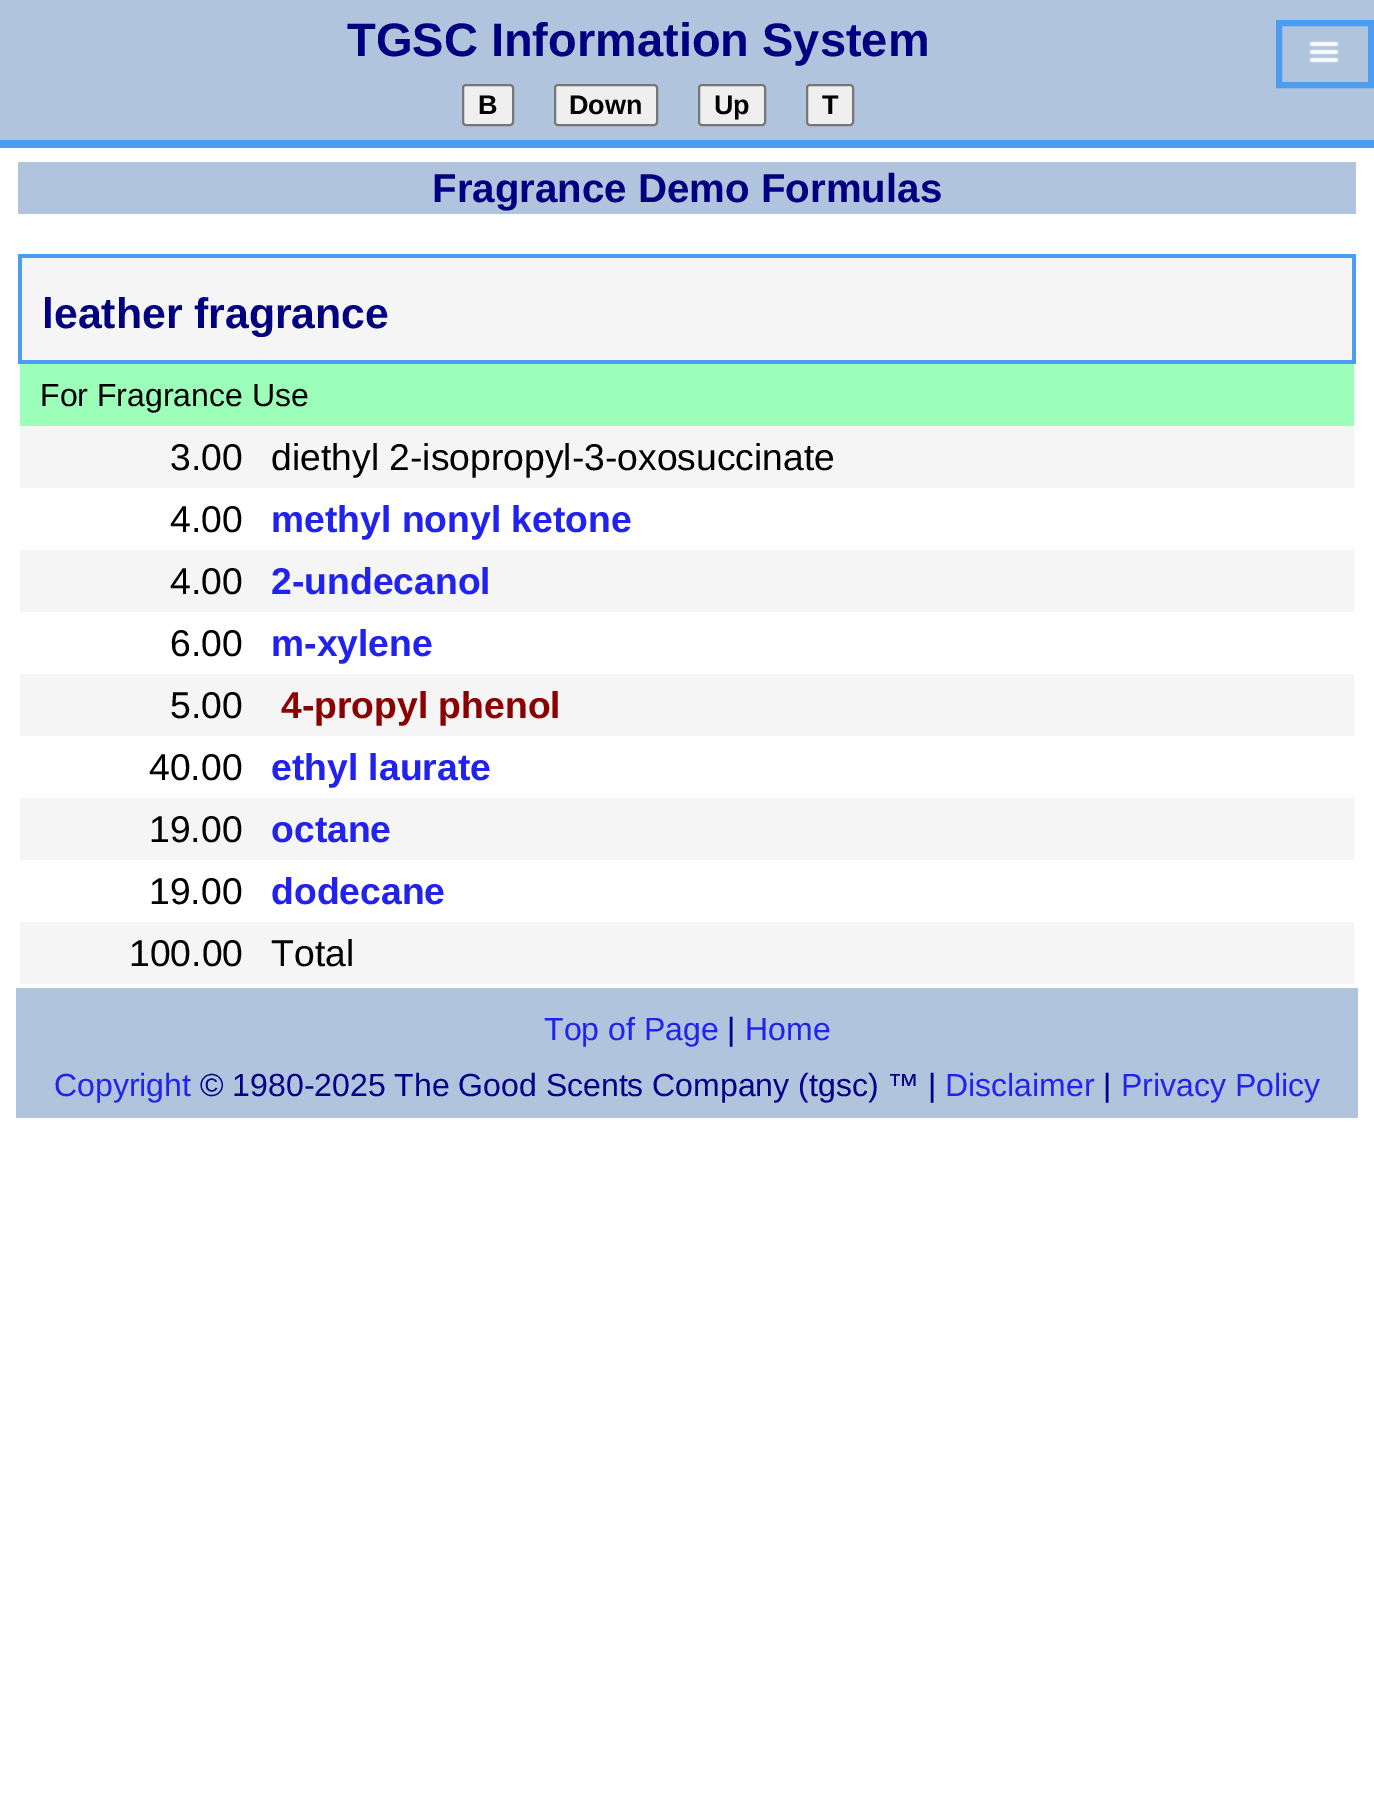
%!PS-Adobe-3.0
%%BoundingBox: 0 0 1374 1802
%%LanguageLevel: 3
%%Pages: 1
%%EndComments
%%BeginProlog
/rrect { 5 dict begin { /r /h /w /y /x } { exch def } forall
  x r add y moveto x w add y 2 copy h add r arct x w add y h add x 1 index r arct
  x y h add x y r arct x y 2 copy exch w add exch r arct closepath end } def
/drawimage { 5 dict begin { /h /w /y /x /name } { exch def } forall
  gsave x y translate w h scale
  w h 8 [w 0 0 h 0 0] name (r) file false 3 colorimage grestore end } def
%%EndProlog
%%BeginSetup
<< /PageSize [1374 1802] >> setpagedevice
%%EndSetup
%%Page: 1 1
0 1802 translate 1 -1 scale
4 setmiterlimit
1 setgray
0 0 1374 1802 rectfill
0.69 0.769 0.871 setrgbcolor
0 0 1374 140 rectfill
0.298 0.612 0.945 setrgbcolor
0 140 1374 8 rectfill
6 setlinewidth
1279 23 92 62 rectstroke
(images/1.raw) 1309 41 30 22 drawimage
0.937 setgray
463 85 50 40 3 rrect gsave fill grestore
0.463 setgray
2 setlinewidth
stroke
0.937 setgray
555 85 102 40 3 rrect gsave fill grestore
0.463 setgray
stroke
0.937 setgray
699 85 66 40 3 rrect gsave fill grestore
0.463 setgray
stroke
0.937 setgray
807 85 46 40 3 rrect gsave fill grestore
0.463 setgray
stroke
0.69 0.769 0.871 setrgbcolor
18 162 1338 52 rectfill
0.961 setgray
22 258 1330 102 rectfill
0.298 0.612 0.945 setrgbcolor
18 254 1338 4 rectfill
1352 254 4 110 rectfill
18 360 1338 4 rectfill
18 254 4 110 rectfill
0.608 1 0.725 setrgbcolor
20 364 1334 62 rectfill
0.961 setgray
20 426 1334 62 rectfill
20 550 1334 62 rectfill
20 674 1334 62 rectfill
20 798 1334 62 rectfill
20 922 1334 62 rectfill
0.69 0.769 0.871 setrgbcolor
16 988 1342 130 rectfill
/LiberationSans-Bold [47 0 0 -47 0 0] selectfont
0 0 0.502 setrgbcolor
347 56 moveto (TGSC Information System) show
/LiberationSans-Bold [27 0 0 -27 0 0] selectfont
0 setgray
478 114 moveto (B) show
569 114 moveto (Down) show
714 114 moveto (Up) show
822 114 moveto (T) show
/LiberationSans-Bold [40.25 0 0 -40.25 0 0] selectfont
0 0 0.502 setrgbcolor
432 202 moveto (Fragrance Demo Formulas) show
/LiberationSans-Bold [42.75 0 0 -42.75 0 0] selectfont
42 328 moveto (leather fragrance) show
/LiberationSans-Regular [32 0 0 -32 0 0] selectfont
0 setgray
40 406 moveto (For Fragrance Use) show
/LiberationSans-Regular [37.3 0 0 -37.3 0 0] selectfont
170 470 moveto (3.00) show
271 470 moveto (diethyl 2-isopropyl-3-oxosuccinate) show
170 532 moveto (4.00) show
/LiberationSans-Bold [37.3 0 0 -37.3 0 0] selectfont
0.133 0.133 0.933 setrgbcolor
271 532 moveto (methyl nonyl ketone) show
/LiberationSans-Regular [37.3 0 0 -37.3 0 0] selectfont
0 setgray
170 594 moveto (4.00) show
/LiberationSans-Bold [37.3 0 0 -37.3 0 0] selectfont
0.133 0.133 0.933 setrgbcolor
271 594 moveto (2-undecanol) show
/LiberationSans-Regular [37.3 0 0 -37.3 0 0] selectfont
0 setgray
170 656 moveto (6.00) show
/LiberationSans-Bold [37.3 0 0 -37.3 0 0] selectfont
0.133 0.133 0.933 setrgbcolor
271 656 moveto (m-xylene) show
/LiberationSans-Regular [37.3 0 0 -37.3 0 0] selectfont
0 setgray
170 718 moveto (5.00) show
/LiberationSans-Bold [37.3 0 0 -37.3 0 0] selectfont
0.545 0 0 setrgbcolor
281 718 moveto (4-propyl phenol) show
/LiberationSans-Regular [37.3 0 0 -37.3 0 0] selectfont
0 setgray
149 780 moveto (40.00) show
/LiberationSans-Bold [37.3 0 0 -37.3 0 0] selectfont
0.133 0.133 0.933 setrgbcolor
271 780 moveto (ethyl laurate) show
/LiberationSans-Regular [37.3 0 0 -37.3 0 0] selectfont
0 setgray
149 842 moveto (19.00) show
/LiberationSans-Bold [37.3 0 0 -37.3 0 0] selectfont
0.133 0.133 0.933 setrgbcolor
271 842 moveto (octane) show
/LiberationSans-Regular [37.3 0 0 -37.3 0 0] selectfont
0 setgray
149 904 moveto (19.00) show
/LiberationSans-Bold [37.3 0 0 -37.3 0 0] selectfont
0.133 0.133 0.933 setrgbcolor
271 904 moveto (dodecane) show
/LiberationSans-Regular [37.3 0 0 -37.3 0 0] selectfont
0 setgray
129 966 moveto (100.00) show
271 966 moveto (Total) show
/LiberationSans-Regular [32 0 0 -32 0 0] selectfont
0.133 0.133 0.933 setrgbcolor
544 1040 moveto (Top of Page) show
0 0 0.533 setrgbcolor
727 1040 moveto (|) show
0.133 0.133 0.933 setrgbcolor
745 1040 moveto (Home) show
54 1096 moveto (Copyright) show
0 0 0.533 setrgbcolor
200 1096 moveto (© 1980-2025 The Good Scents Company \(tgsc\) ™ |) show
0.133 0.133 0.933 setrgbcolor
945 1096 moveto (Disclaimer) show
0 0 0.533 setrgbcolor
1103 1096 moveto (|) show
0.133 0.133 0.933 setrgbcolor
1121 1096 moveto (Privacy Policy) show
showpage
%%EOF
